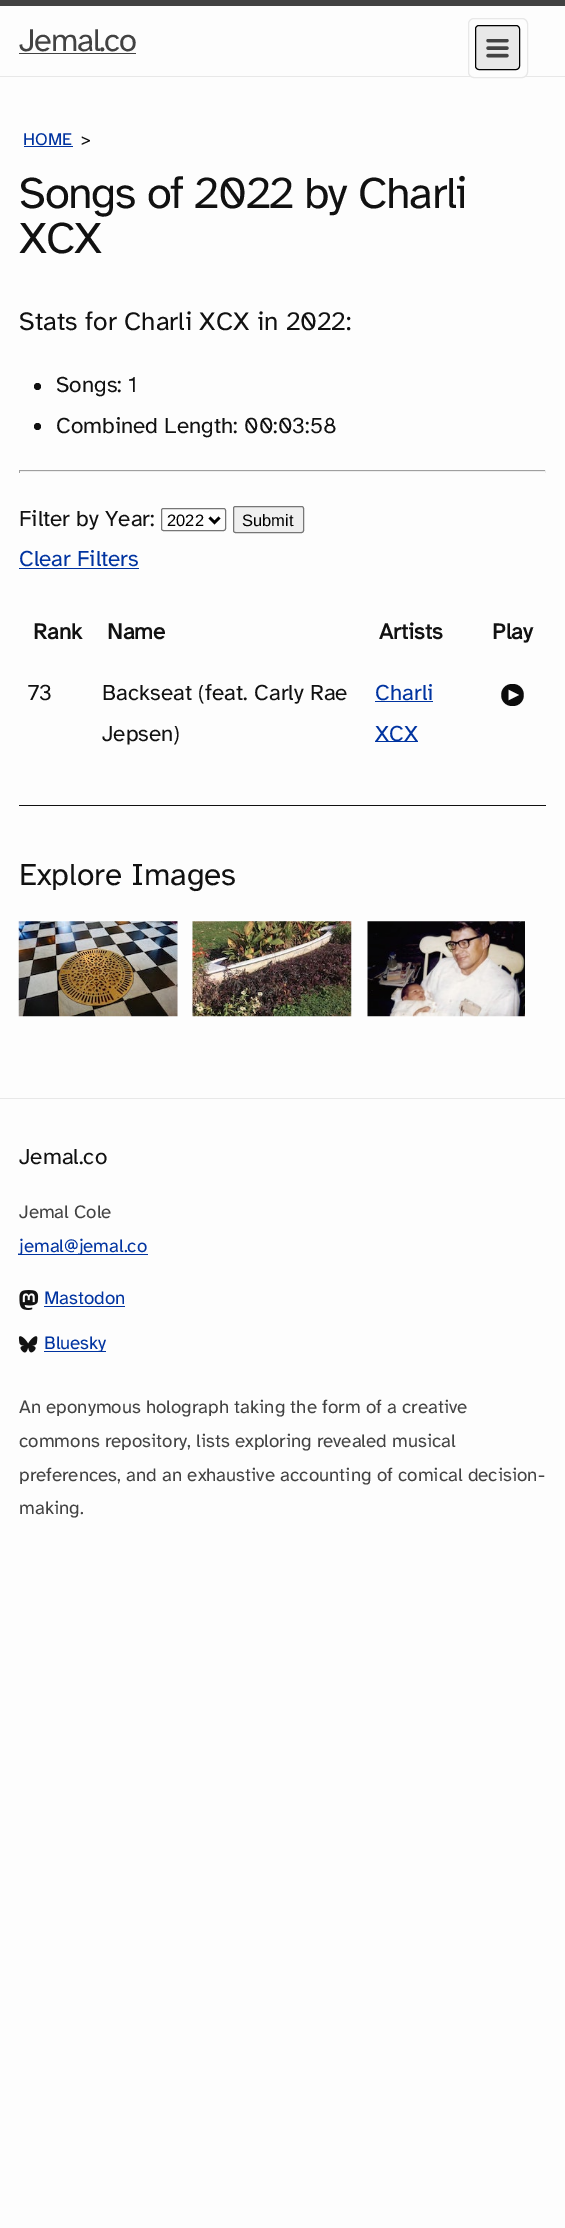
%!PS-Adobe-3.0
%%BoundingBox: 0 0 565 2228
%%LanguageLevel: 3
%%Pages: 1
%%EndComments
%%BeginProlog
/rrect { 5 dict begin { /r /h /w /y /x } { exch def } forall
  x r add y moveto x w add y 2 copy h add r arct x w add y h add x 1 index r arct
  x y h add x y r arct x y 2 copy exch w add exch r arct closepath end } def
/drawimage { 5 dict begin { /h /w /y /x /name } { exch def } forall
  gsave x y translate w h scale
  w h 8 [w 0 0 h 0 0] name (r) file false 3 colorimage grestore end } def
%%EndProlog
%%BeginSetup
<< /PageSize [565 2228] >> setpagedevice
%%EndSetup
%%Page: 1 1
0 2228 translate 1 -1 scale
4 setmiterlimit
0.992 setgray
0 0 565 2228 rectfill
0.259 setgray
0 0 565 6 rectfill
0.91 setgray
0 76 565 1 rectfill
0.259 setgray
19 53 117 1 rectfill
0.992 setgray
468.5 18.5 59 59 5.5 rrect gsave fill grestore
0.91 setgray
stroke
475.5 25.5 44 44 3.5 rrect gsave fill grestore
0 setgray
stroke
(images/1.raw) 486 39 23 19 drawimage
0 0.2 0.627 setrgbcolor
24 146 49 1 rectfill
0.067 setgray
19 805 527 1 rectfill
newpath 37.5 386.5 3.5 0 360 arc closepath fill
newpath 37.5 426.5 3.5 0 360 arc closepath fill
0.624 setgray
19 470 527 1 rectfill
0.933 setgray
545 470 1 3 rectfill
19 471 527 1 rectfill
0.624 setgray
19 470 1 3 rectfill
0.463 setgray
161.5 508.5 64 22 2 rrect stroke
0 setgray
2.5 setlinewidth
newpath 209.5 517.5 moveto 214.5 522.5 lineto 219.5 517.5 lineto stroke
0.937 setgray
233.5 506.5 70 26 2 rrect gsave fill grestore
0.463 setgray
1 setlinewidth
stroke
0 0.2 0.627 setrgbcolor
19 568 120 1 rectfill
375 701 58 1 rectfill
375 741 43 1 rectfill
0.047 setgray
newpath 512.5 684 moveto 497.5 684 497.5 706 512.5 706 curveto 527.5 706 527.5 684 512.5 684 curveto closepath 508.5 700.5 moveto 508.5 689.5 lineto 519.5 695 lineto closepath fill
(images/2.raw) 18 921 160 96 drawimage
(images/3.raw) 192 921 160 96 drawimage
(images/4.raw) 367 921 158 96 drawimage
0.91 setgray
0 1098 565 1 rectfill
0 0.2 0.627 setrgbcolor
19 1254 129 1 rectfill
(images/5.raw) 19 1290 20 20 drawimage
44 1306 81 1 rectfill
(images/6.raw) 18 1336 20 17 drawimage
44 1351 62 1 rectfill
/AtkinsonHyperlegible-Regular [32.5 0 0 -32.5 0 0] selectfont
0.259 setgray
19 51 moveto -1.25 0 (Jemal.co) ashow
/AtkinsonHyperlegible-Regular [17.5 0 0 -17.5 0 0] selectfont
0 0.2 0.627 setrgbcolor
23 145 moveto (HOME) show
0.067 setgray
81 145 moveto (>) show
/AtkinsonHyperlegible-Regular [45 0 0 -45 0 0] selectfont
19 208 moveto -1.25 0 (Songs of 2022 by Charli) ashow
19 253 moveto -1.25 0 (XCX) ashow
/AtkinsonHyperlegible-Regular [26.25 0 0 -26.25 0 0] selectfont
19 330 moveto (Stats for Charli XCX in 2022:) show
/AtkinsonHyperlegible-Regular [22.5 0 0 -22.5 0 0] selectfont
56 392 moveto (Songs: 1) show
56 433 moveto (Combined Length: 00:03:58) show
19 526 moveto (Filter by Year:) show
/LiberationSans-Regular [16.5 0 0 -16.5 0 0] selectfont
0 setgray
167 526 moveto (2022) show
242 526 moveto (Submit) show
/AtkinsonHyperlegible-Regular [22.5 0 0 -22.5 0 0] selectfont
0 0.2 0.627 setrgbcolor
19 566 moveto (Clear Filters) show
/AtkinsonHyperlegible-Bold [22.5 0 0 -22.5 0 0] selectfont
0.067 setgray
33 639 moveto (Rank) show
107 639 moveto (Name) show
379 639 moveto (Artists) show
492 639 moveto (Play) show
/AtkinsonHyperlegible-Regular [22.5 0 0 -22.5 0 0] selectfont
28 700 moveto (73) show
102 700 moveto (Backseat \(feat. Carly Rae) show
102 741 moveto (Jepsen\)) show
0 0.2 0.627 setrgbcolor
375 700 moveto (Charli) show
375 741 moveto (XCX) show
/AtkinsonHyperlegible-Regular [31.5 0 0 -31.5 0 0] selectfont
0.067 setgray
19 885 moveto (Explore Images) show
/AtkinsonHyperlegible-Regular [22.5 0 0 -22.5 0 0] selectfont
19 1164 moveto (Jemal.co) show
/AtkinsonHyperlegible-Regular [18.75 0 0 -18.75 0 0] selectfont
0.259 setgray
19 1218 moveto (Jemal Cole) show
0 0.2 0.627 setrgbcolor
19 1252 moveto (jemal@jemal.co) show
44 1304 moveto (Mastodon) show
44 1349 moveto (Bluesky) show
0.259 setgray
19 1413 moveto (An eponymous holograph taking the form of a creative) show
19 1447 moveto (commons repository, lists exploring revealed musical) show
19 1481 moveto (preferences, and an exhaustive accounting of comical decision-) show
19 1514 moveto (making.) show
showpage
%%EOF
